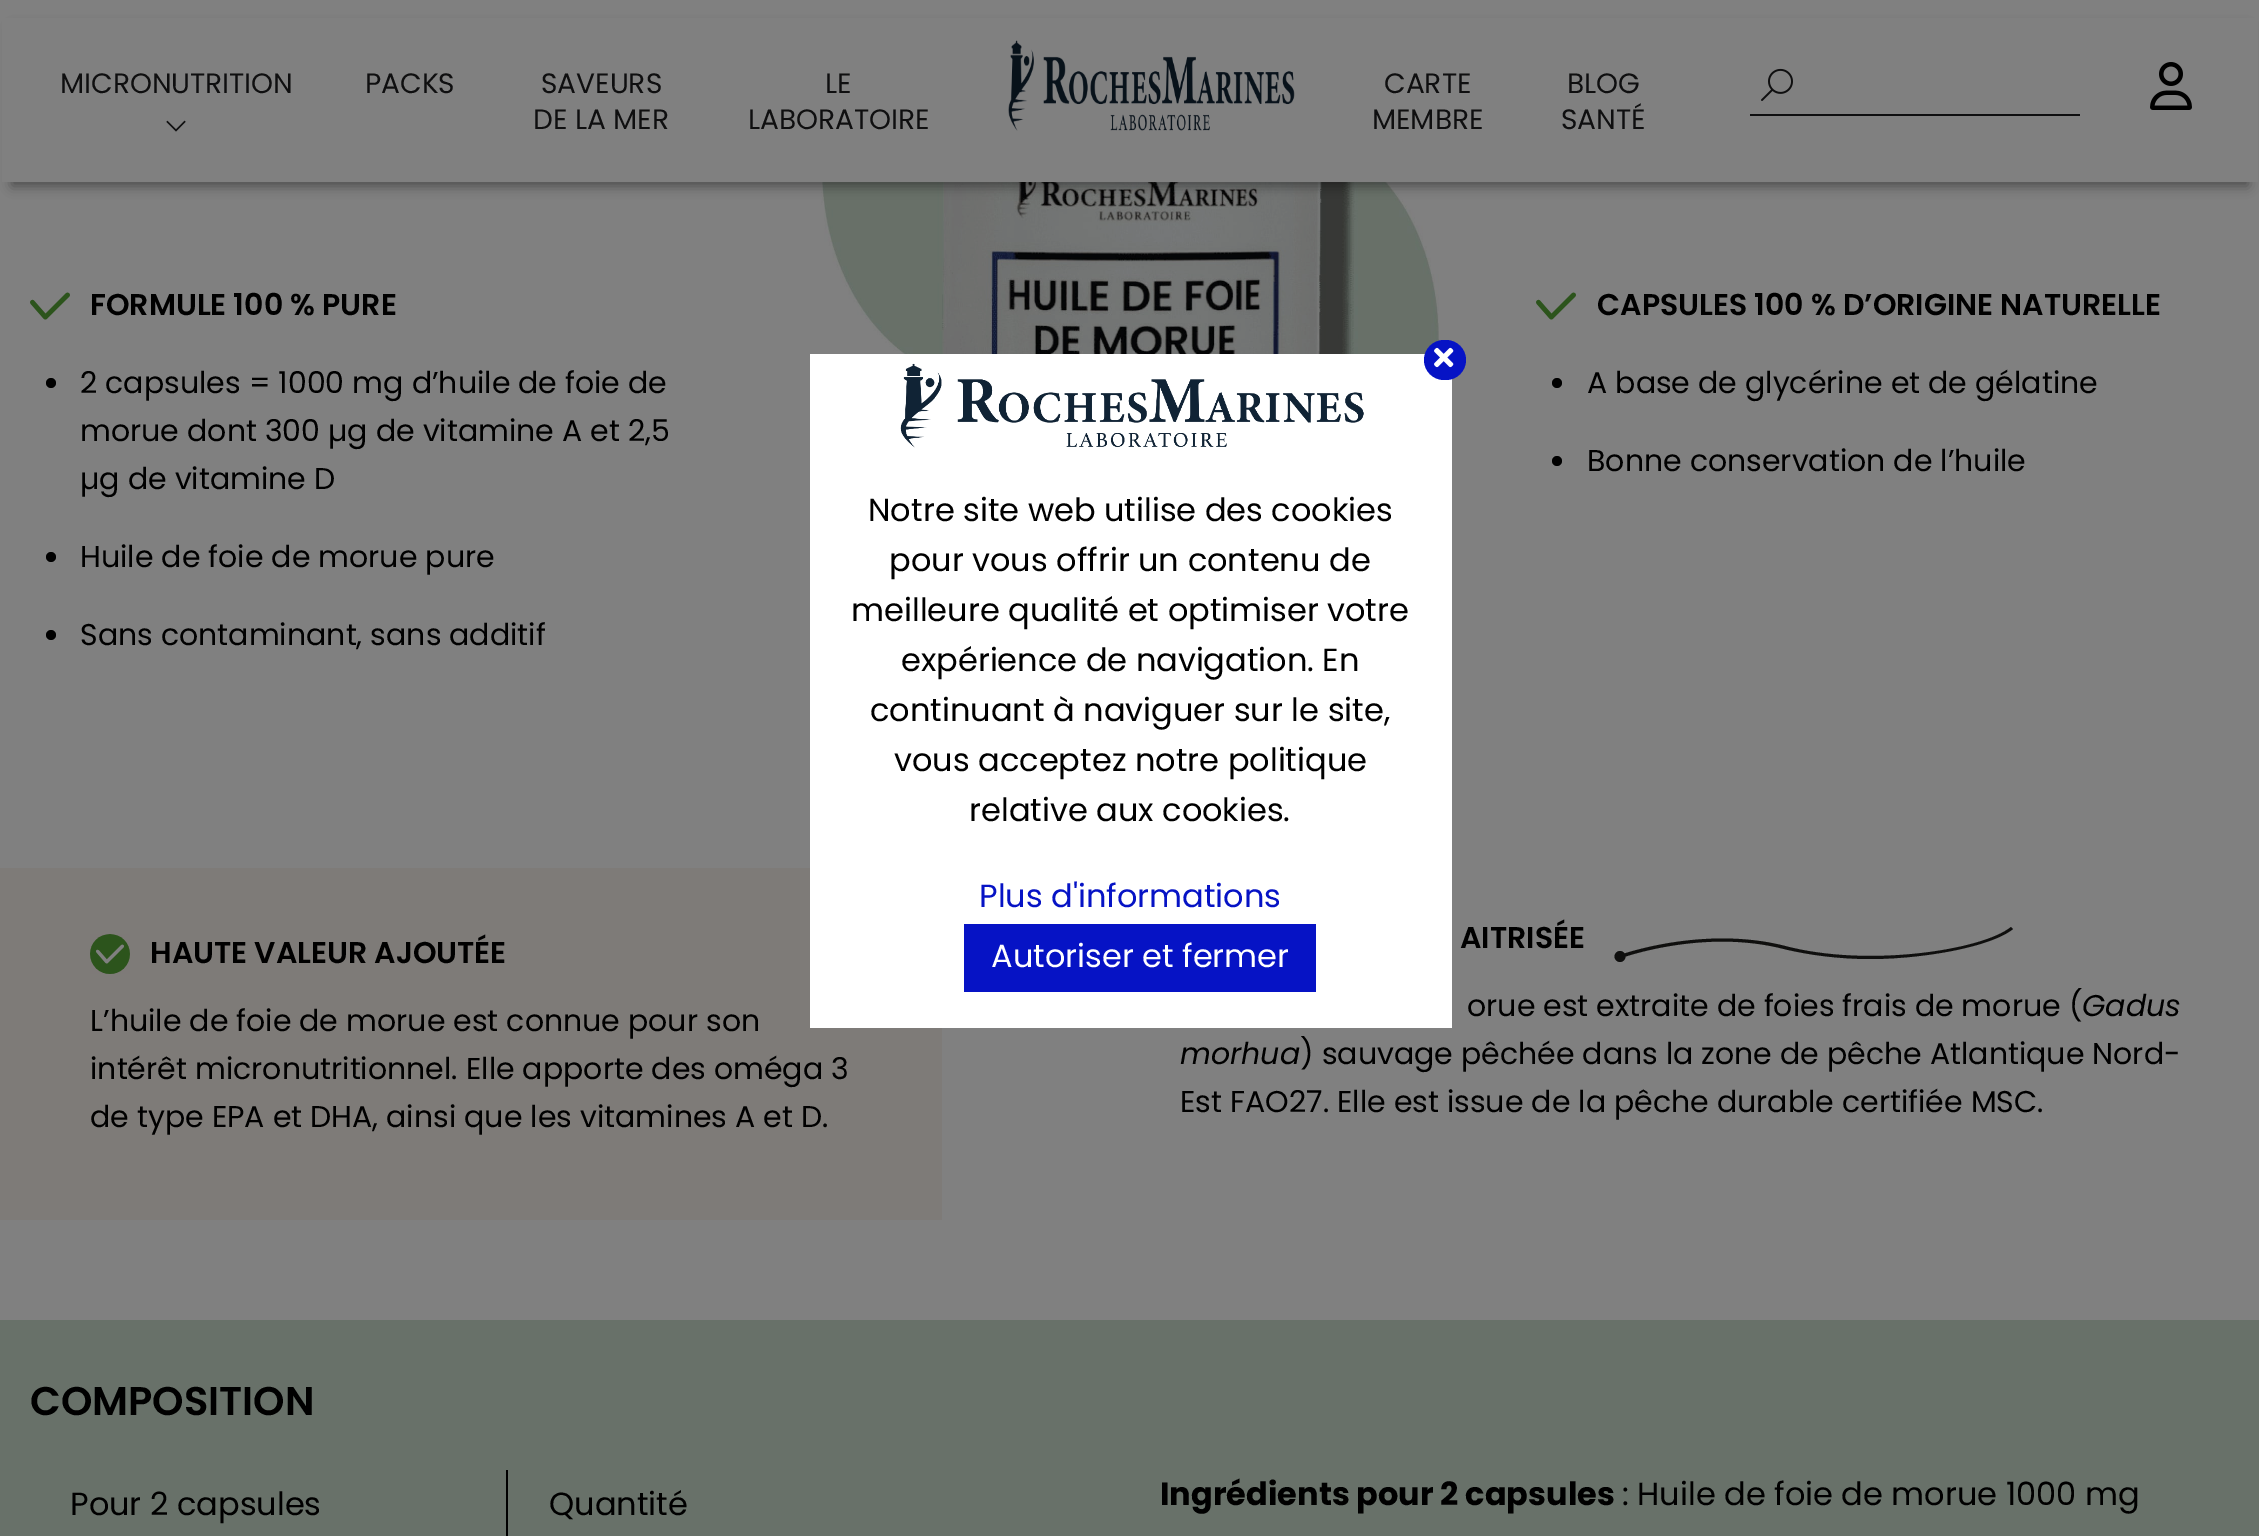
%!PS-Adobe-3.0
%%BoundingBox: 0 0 2259 1536
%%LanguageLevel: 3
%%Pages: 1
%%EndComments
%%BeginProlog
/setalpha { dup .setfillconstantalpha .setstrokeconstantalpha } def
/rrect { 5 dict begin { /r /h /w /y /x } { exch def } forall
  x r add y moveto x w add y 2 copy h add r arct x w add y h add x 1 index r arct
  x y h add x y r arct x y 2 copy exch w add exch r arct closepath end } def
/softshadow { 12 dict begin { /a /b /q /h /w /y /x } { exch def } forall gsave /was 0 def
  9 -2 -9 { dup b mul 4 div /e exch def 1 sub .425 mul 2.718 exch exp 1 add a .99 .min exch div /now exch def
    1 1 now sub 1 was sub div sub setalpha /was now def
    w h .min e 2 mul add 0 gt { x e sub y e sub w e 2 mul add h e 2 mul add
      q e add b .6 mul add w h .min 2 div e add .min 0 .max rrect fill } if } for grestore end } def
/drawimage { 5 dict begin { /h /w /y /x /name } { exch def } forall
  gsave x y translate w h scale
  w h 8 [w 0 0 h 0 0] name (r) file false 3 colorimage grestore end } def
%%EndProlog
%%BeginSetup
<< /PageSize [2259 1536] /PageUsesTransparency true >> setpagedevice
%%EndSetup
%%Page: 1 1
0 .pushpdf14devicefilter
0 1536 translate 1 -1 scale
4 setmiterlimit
0.502 setgray
0 0 2259 1536 rectfill
(images/5.raw) 821 182 618 172 drawimage
0 setgray
12 28 2236 158 0 6 0.4 softshadow
0.502 setgray
2 18 2256 164 rectfill
(images/1.raw) 166 120 20 12 drawimage
(images/2.raw) 1008 40 287 91 drawimage
(images/3.raw) 1761 68 32 33 drawimage
0.059 0.059 0.063 setrgbcolor
1750 114 330 2 rectfill
(images/4.raw) 2150 62 42 48 drawimage
(images/6.raw) 30 292 40 28 drawimage
0 setgray
newpath 51 383 5 0 360 arc closepath fill
newpath 51 557 5 0 360 arc closepath fill
newpath 51 635 5 0 360 arc closepath fill
(images/6.raw) 1536 292 40 28 drawimage
newpath 1557 383 5 0 360 arc closepath fill
newpath 1557 461 5 0 360 arc closepath fill
0.494 0.482 0.471 setrgbcolor
0 868 942 352 rectfill
(images/7.raw) 90 934 40 40 drawimage
0.059 0.059 0.055 setrgbcolor
newpath 1620 956.5 5.5 0 360 arc closepath fill
newpath 1870 959 moveto 1839 959 1809 955 1784 949 curveto 1703 928 1621 958 1621 958 curveto 1620 955 lineto 1620 955 1703 925 1785 946 curveto 1868 968 1983 950 2011 927 curveto 2013 929 lineto 1998 941 1962 951 1919 956 curveto 1902 958 1886 959 1870 959 curveto closepath fill
0.408 0.443 0.412 setrgbcolor
0 1320 2259 216 rectfill
0 setgray
506 1470 2 66 rectfill
1 setgray
810 354 642 674 rectfill
(images/8.raw) 900 363 464 85 drawimage
0.024 0.075 0.773 setrgbcolor
1424 340 42 40 20 rrect fill
(images/9.raw) 1434 347 20 21 drawimage
964 924 352 68 rectfill
/Poppins-Regular [28 0 0 -28 0 0] selectfont
0.059 0.059 0.063 setrgbcolor
60 93 moveto (MICRONUTRITION) show
365 93 moveto (PACKS) show
541 93 moveto (SAVEURS) show
533 129 moveto (DE LA MER) show
825 93 moveto (LE) show
748 129 moveto (LABORATOIRE) show
1384 93 moveto (CARTE) show
1372 129 moveto (MEMBRE) show
1567 93 moveto (BLOG) show
1561 129 moveto (SANTÉ) show
/Poppins-SemiBold [30 0 0 -30 0 0] selectfont
0 setgray
90 315 moveto (FORMULE 100 % PURE) show
/Poppins-Regular [30 0 0 -30 0 0] selectfont
80 393 moveto (2 capsules = 1000 mg d’huile de foie de) show
80 441 moveto (morue dont 300 µg de vitamine A et 2,5) show
80 489 moveto (µg de vitamine D) show
80 567 moveto (Huile de foie de morue pure) show
80 645 moveto (Sans contaminant, sans additif) show
/Poppins-SemiBold [30 0 0 -30 0 0] selectfont
1597 315 moveto (CAPSULES 100 % D’ORIGINE NATURELLE) show
/Poppins-Regular [30 0 0 -30 0 0] selectfont
1587 393 moveto (A base de glycérine et de gélatine) show
1587 471 moveto (Bonne conservation de l’huile) show
/Poppins-SemiBold [30 0 0 -30 0 0] selectfont
150 963 moveto (HAUTE VALEUR AJOUTÉE) show
/Poppins-Regular [30 0 0 -30 0 0] selectfont
90 1031 moveto (L’huile de foie de morue est connue pour son) show
90 1079 moveto (intérêt micronutritionnel. Elle apporte des oméga 3) show
90 1127 moveto (de type EPA et DHA, ainsi que les vitamines A et D.) show
/Poppins-SemiBold [30 0 0 -30 0 0] selectfont
1460 948 moveto (AITRISÉE) show
/Poppins-Regular [30 0 0 -30 0 0] selectfont
1467 1016 moveto (orue est extraite de foies frais de morue \() show
/Poppins-Italic [30 0 0 -30 0 0] selectfont
2082 1016 moveto (Gadus) show
1180 1064 moveto (morhua) show
/Poppins-Regular [30 0 0 -30 0 0] selectfont
1300 1064 moveto (\) sauvage pêchée dans la zone de pêche Atlantique Nord-) show
1180 1112 moveto (Est FAO27. Elle est issue de la pêche durable certifiée MSC.) show
/Poppins-SemiBold [40 0 0 -40 0 0] selectfont
30 1415 moveto (COMPOSITION) show
/Poppins-Regular [32 0 0 -32 0 0] selectfont
70 1515 moveto (Pour 2 capsules) show
549 1515 moveto (Quantité) show
/Poppins-Bold [32 0 0 -32 0 0] selectfont
1160 1505 moveto (Ingrédients pour 2 capsules) show
/Poppins-Regular [32 0 0 -32 0 0] selectfont
1622 1505 moveto (: Huile de foie de morue 1000 mg) show
868 521 moveto (Notre site web utilise des cookies) show
889 571 moveto (pour vous offrir un contenu de) show
851 621 moveto (meilleure qualité et optimiser votre) show
901 671 moveto (expérience de navigation. En) show
870 721 moveto (continuant à naviguer sur le site,) show
894 771 moveto (vous acceptez notre politique) show
969 821 moveto (relative aux cookies.) show
0.024 0.075 0.773 setrgbcolor
979 907 moveto (Plus d'informations) show
1 setgray
991 967 moveto (Autoriser et fermer) show
.poppdf14devicefilter showpage
%%EOF
